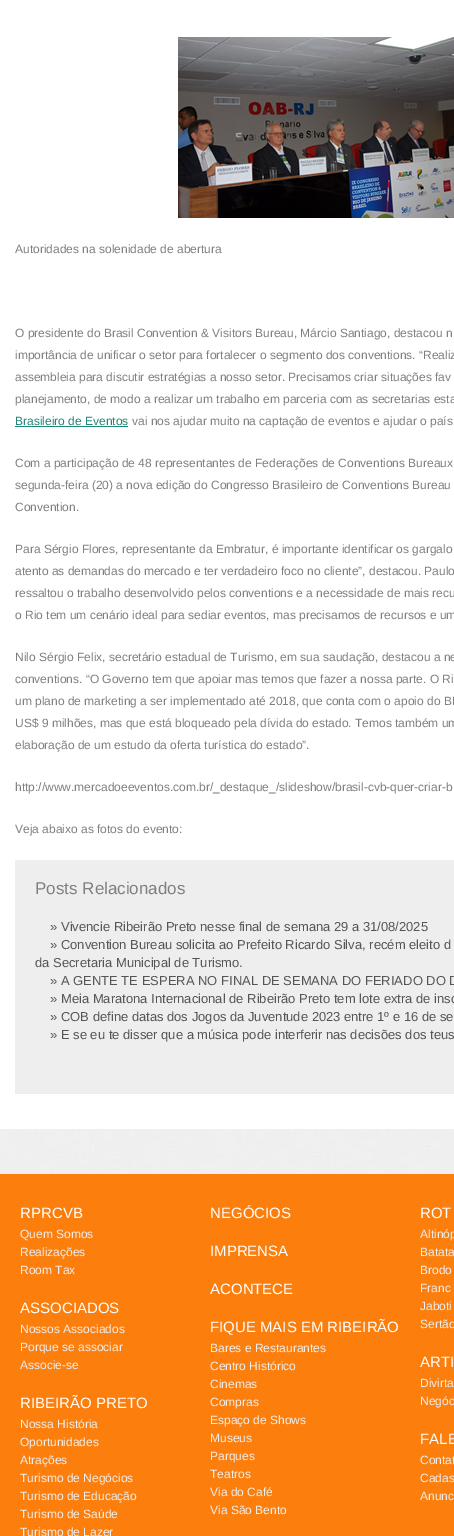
%!PS-Adobe-3.0
%%BoundingBox: 0 0 454 1536
%%LanguageLevel: 3
%%Pages: 1
%%EndComments
%%BeginProlog
/drawimage { 5 dict begin { /h /w /y /x /name } { exch def } forall
  gsave x y translate w h scale
  w h 8 [w 0 0 h 0 0] name (r) file false 3 colorimage grestore end } def
%%EndProlog
%%BeginSetup
<< /PageSize [454 1536] >> setpagedevice
%%EndSetup
%%Page: 1 1
0 1536 translate 1 -1 scale
4 setmiterlimit
1 setgray
0 0 454 1536 rectfill
(images/1.raw) 0 1129 454 45 drawimage
(images/2.raw) 178 37 276 181 drawimage
0.125 0.525 0.471 setrgbcolor
15 426 113 1 rectfill
0.933 setgray
15 860 439 234 rectfill
0.988 0.498 0.055 setrgbcolor
0 1174 454 362 rectfill
/LiberationSans-Regular [12 0 0 -12 0 0] selectfont
0.498 setgray
15 253 moveto (Autoridades na solenidade de abertura) show
15 337 moveto (O presidente do Brasil Convention & Visitors Bureau, Márcio Santiago, destacou n) show
15 359 moveto (importância de unificar o setor para fortalecer o segmento dos conventions. “Realiz) show
15 381 moveto (assembleia para discutir estratégias a nosso setor. Precisamos criar situações fav) show
15 403 moveto (planejamento, de modo a realizar um trabalho em parceria com as secretarias esta) show
0.125 0.525 0.471 setrgbcolor
15 425 moveto (Brasileiro de Eventos) show
0.498 setgray
132 425 moveto (vai nos ajudar muito na captação de eventos e ajudar o país) show
15 467 moveto (Com a participação de 48 representantes de Federações de Conventions Bureaux) show
15 489 moveto (segunda-feira \(20\) a nova edição do Congresso Brasileiro de Conventions Bureau) show
15 511 moveto (Convention.) show
15 553 moveto (Para Sérgio Flores, representante da Embratur, é importante identificar os gargalo) show
15 575 moveto (atento as demandas do mercado e ter verdadeiro foco no cliente”, destacou. Paulo) show
15 597 moveto (ressaltou o trabalho desenvolvido pelos conventions e a necessidade de mais recu) show
15 619 moveto (o Rio tem um cenário ideal para sediar eventos, mas precisamos de recursos e um) show
15 661 moveto (Nilo Sérgio Felix, secretário estadual de Turismo, em sua saudação, destacou a ne) show
15 683 moveto (conventions. “O Governo tem que apoiar mas temos que fazer a nossa parte. O Ri) show
15 705 moveto (um plano de marketing a ser implementado até 2018, que conta com o apoio do BI) show
15 727 moveto (US$ 9 milhões, mas que está bloqueado pela dívida do estado. Temos também um) show
15 749 moveto (elaboração de um estudo da oferta turística do estado”.) show
15 791 moveto (http://www.mercadoeeventos.com.br/_destaque_/slideshow/brasil-cvb-quer-criar-b) show
15 833 moveto (Veja abaixo as fotos do evento:) show
/LiberationSans-Regular [17 0 0 -17 0 0] selectfont
35 894 moveto (Posts Relacionados) show
/LiberationSans-Regular [13 0 0 -13 0 0] selectfont
0.333 setgray
50 931 moveto (» Vivencie Ribeirão Preto nesse final de semana 29 a 31/08/2025) show
50 949 moveto (» Convention Bureau solicita ao Prefeito Ricardo Silva, recém eleito d) show
35 967 moveto (da Secretaria Municipal de Turismo.) show
50 985 moveto (» A GENTE TE ESPERA NO FINAL DE SEMANA DO FERIADO DO D) show
50 1003 moveto (» Meia Maratona Internacional de Ribeirão Preto tem lote extra de insc) show
50 1021 moveto (» COB define datas dos Jogos da Juventude 2023 entre 1º e 16 de se) show
50 1039 moveto (» E se eu te disser que a música pode interferir nas decisões dos teus) show
/LiberationSans-Regular [15 0 0 -15 0 0] selectfont
1 setgray
20 1218 moveto (RPRCVB) show
/LiberationSans-Regular [12 0 0 -12 0 0] selectfont
0.933 setgray
20 1238 moveto (Quem Somos) show
20 1256 moveto (Realizações) show
20 1274 moveto (Room Tax) show
/LiberationSans-Regular [15 0 0 -15 0 0] selectfont
1 setgray
20 1313 moveto (ASSOCIADOS) show
/LiberationSans-Regular [12 0 0 -12 0 0] selectfont
0.933 setgray
20 1333 moveto (Nossos Associados) show
20 1351 moveto (Porque se associar) show
20 1369 moveto (Associe-se) show
/LiberationSans-Regular [15 0 0 -15 0 0] selectfont
1 setgray
20 1408 moveto (RIBEIRÃO PRETO) show
/LiberationSans-Regular [12 0 0 -12 0 0] selectfont
0.933 setgray
20 1428 moveto (Nossa História) show
20 1446 moveto (Oportunidades) show
20 1464 moveto (Atrações) show
20 1482 moveto (Turismo de Negócios) show
20 1500 moveto (Turismo de Educação) show
20 1518 moveto (Turismo de Saúde) show
20 1536 moveto (Turismo de Lazer) show
/LiberationSans-Regular [15 0 0 -15 0 0] selectfont
1 setgray
210 1218 moveto (NEGÓCIOS) show
210 1256 moveto (IMPRENSA) show
210 1294 moveto (ACONTECE) show
210 1332 moveto (FIQUE MAIS EM RIBEIRÃO) show
/LiberationSans-Regular [12 0 0 -12 0 0] selectfont
0.933 setgray
210 1352 moveto (Bares e Restaurantes) show
210 1370 moveto (Centro Histórico) show
210 1388 moveto (Cinemas) show
210 1406 moveto (Compras) show
210 1424 moveto (Espaço de Shows) show
210 1442 moveto (Museus) show
210 1460 moveto (Parques) show
210 1478 moveto (Teatros) show
210 1496 moveto (Via do Café) show
210 1514 moveto (Via São Bento) show
/LiberationSans-Regular [15 0 0 -15 0 0] selectfont
1 setgray
420 1218 moveto (ROT) show
/LiberationSans-Regular [12 0 0 -12 0 0] selectfont
0.933 setgray
420 1238 moveto (Altinóp) show
420 1256 moveto (Batata) show
420 1274 moveto (Brodo) show
420 1292 moveto (Franc) show
420 1310 moveto (Jaboti) show
420 1328 moveto (Sertão) show
/LiberationSans-Regular [15 0 0 -15 0 0] selectfont
1 setgray
420 1367 moveto (ARTI) show
/LiberationSans-Regular [12 0 0 -12 0 0] selectfont
0.933 setgray
420 1387 moveto (Divirta) show
420 1405 moveto (Negóc) show
/LiberationSans-Regular [15 0 0 -15 0 0] selectfont
1 setgray
420 1444 moveto (FALE) show
/LiberationSans-Regular [12 0 0 -12 0 0] selectfont
0.933 setgray
420 1464 moveto (Contat) show
420 1482 moveto (Cadas) show
420 1500 moveto (Anunc) show
showpage
%%EOF
